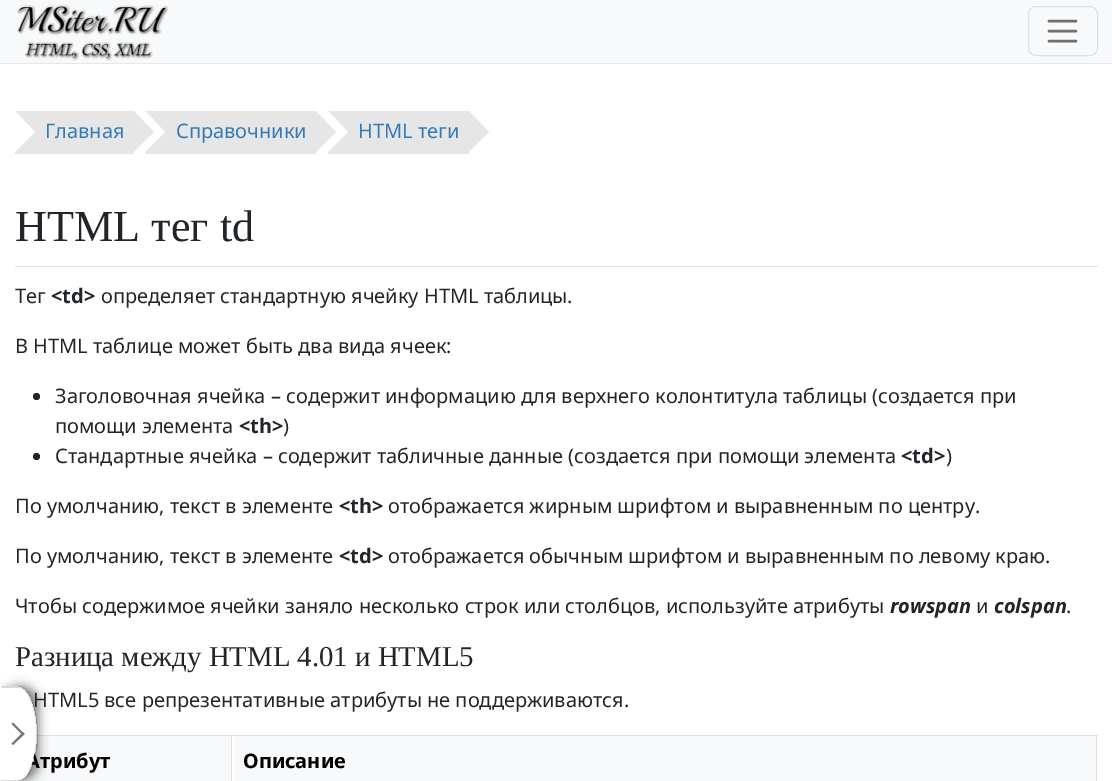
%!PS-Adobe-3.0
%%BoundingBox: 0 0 1112 781
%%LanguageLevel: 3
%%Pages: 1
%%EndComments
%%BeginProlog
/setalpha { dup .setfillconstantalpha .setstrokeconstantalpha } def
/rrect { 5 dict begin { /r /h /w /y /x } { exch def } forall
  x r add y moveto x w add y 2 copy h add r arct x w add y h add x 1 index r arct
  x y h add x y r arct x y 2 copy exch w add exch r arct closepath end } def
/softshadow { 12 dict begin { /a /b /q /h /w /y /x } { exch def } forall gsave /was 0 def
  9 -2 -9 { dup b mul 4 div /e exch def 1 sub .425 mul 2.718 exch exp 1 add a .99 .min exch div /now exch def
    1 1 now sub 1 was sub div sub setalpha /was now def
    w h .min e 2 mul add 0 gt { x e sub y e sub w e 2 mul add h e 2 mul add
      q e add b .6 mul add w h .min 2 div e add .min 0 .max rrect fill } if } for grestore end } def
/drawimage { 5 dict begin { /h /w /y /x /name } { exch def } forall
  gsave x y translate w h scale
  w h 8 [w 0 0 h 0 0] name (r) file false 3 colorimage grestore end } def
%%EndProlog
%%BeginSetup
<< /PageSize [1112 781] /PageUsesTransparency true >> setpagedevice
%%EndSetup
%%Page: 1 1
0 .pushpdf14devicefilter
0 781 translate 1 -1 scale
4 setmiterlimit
1 setgray
0 0 1112 781 rectfill
0.973 0.976 0.98 setrgbcolor
0 0 1112 63 rectfill
0.906 setgray
0 63 1112 1 rectfill
(images/1.raw) 17 4 152 57 drawimage
0.875 0.878 0.882 setrgbcolor
1028.5 6.5 69 49 7.5 rrect stroke
0.439 0.439 0.443 setrgbcolor
2.5 setlinewidth
1 setlinecap
newpath 1049 21 moveto 1076 21 lineto 1049 31 moveto 1076 31 lineto 1049 41 moveto 1076 41 lineto stroke
0.902 setgray
15 111 119 43 rectfill
1 setgray
newpath 15 152 moveto 15 111 lineto 35 132 lineto closepath fill
0.902 setgray
145 111 171 43 rectfill
1 setgray
newpath 145 152 moveto 145 111 lineto 165 132 lineto closepath fill
0.902 setgray
newpath 134 152 moveto 134 111 lineto 154 132 lineto closepath fill
328 111 141 43 rectfill
1 setgray
newpath 328 152 moveto 328 111 lineto 348 132 lineto closepath fill
0.902 setgray
newpath 316 152 moveto 316 111 lineto 336 132 lineto closepath fill
newpath 469 152 moveto 469 111 lineto 489 132 lineto closepath fill
0.871 0.886 0.902 setrgbcolor
15 266 1083 1 rectfill
0.129 0.145 0.161 setrgbcolor
newpath 36.5 396.5 3.5 0 360 arc closepath fill
newpath 36.5 456.5 3.5 0 360 arc closepath fill
0.875 0.878 0.882 setrgbcolor
35 735 1063 1 rectfill
0.973 0.976 0.98 setrgbcolor
18 736 213 45 rectfill
0.875 0.878 0.882 setrgbcolor
15 780 1 1 rectfill
0.973 0.976 0.98 setrgbcolor
234 736 862 45 rectfill
0.875 0.878 0.882 setrgbcolor
1096 735 1 46 rectfill
231 735 1 46 rectfill
gsave
newpath 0 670 moveto 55 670 lineto 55 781 lineto 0 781 lineto closepath 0 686 moveto 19 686 lineto 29 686 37.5 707.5 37.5 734 curveto 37.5 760 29 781 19 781 curveto 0 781 lineto closepath eoclip newpath
0 setgray
1 686 38 95 19 5 0.47 softshadow
grestore
/NotoSans-Regular [20 0 0 -20 0 0] selectfont
0.2 0.478 0.718 setrgbcolor
45 138 moveto (Главная) show
176 138 moveto (Справочники) show
358 138 moveto (HTML теги) show
/LiberationSerif-Regular [44.25 0 0 -44.25 0 0] selectfont
0.129 0.145 0.161 setrgbcolor
15 241 moveto (HTML тег td) show
/NotoSans-Regular [20 0 0 -20 0 0] selectfont
15 303 moveto (Тег) show
/NotoSans-Bold [20 0 0 -20 0 0] selectfont
51 303 moveto (<td>) show
/NotoSans-Regular [20 0 0 -20 0 0] selectfont
101 303 moveto (определяет стандартную ячейку HTML таблицы.) show
15 353 moveto (В HTML таблице может быть два вида ячеек:) show
55 403 moveto (Заголовочная ячейка – содержит информацию для верхнего колонтитула таблицы \(создается при) show
55 433 moveto (помощи элемента) show
/NotoSans-Bold [20 0 0 -20 0 0] selectfont
239 433 moveto (<th>) show
/NotoSans-Regular [20 0 0 -20 0 0] selectfont
283 433 moveto (\)) show
55 463 moveto (Стандартные ячейка – содержит табличные данные \(создается при помощи элемента) show
/NotoSans-Bold [20 0 0 -20 0 0] selectfont
901 463 moveto (<td>) show
/NotoSans-Regular [20 0 0 -20 0 0] selectfont
946 463 moveto (\)) show
15 513 moveto (По умолчанию, текст в элементе) show
/NotoSans-Bold [20 0 0 -20 0 0] selectfont
339 513 moveto (<th>) show
/NotoSans-Regular [20 0 0 -20 0 0] selectfont
388 513 moveto (отображается жирным шрифтом и выравненным по центру.) show
15 563 moveto (По умолчанию, текст в элементе) show
/NotoSans-Bold [20 0 0 -20 0 0] selectfont
339 563 moveto (<td>) show
/NotoSans-Regular [20 0 0 -20 0 0] selectfont
388 563 moveto (отображается обычным шрифтом и выравненным по левому краю.) show
15 613 moveto (Чтобы содержимое ячейки заняло несколько строк или столбцов, используйте атрибуты) show
/NotoSans-BoldItalic [20 0 0 -20 0 0] selectfont
890 613 moveto (rowspan) show
/NotoSans-Regular [20 0 0 -20 0 0] selectfont
976 613 moveto (и) show
/NotoSans-BoldItalic [20 0 0 -20 0 0] selectfont
994 613 moveto (colspan) show
/NotoSans-Regular [20 0 0 -20 0 0] selectfont
1066 613 moveto (.) show
/LiberationSerif-Regular [28.8 0 0 -28.8 0 0] selectfont
15 666 moveto (Разница между HTML 4.01 и HTML5) show
/NotoSans-Regular [20 0 0 -20 0 0] selectfont
33 707 moveto (HTML5 все репрезентативные атрибуты не поддерживаются.) show
/NotoSans-Bold [20 0 0 -20 0 0] selectfont
0 setgray
26 768 moveto (Атрибут) show
243 768 moveto (Описание) show
1 setgray
newpath 1 688 moveto 19 688 lineto 28 688 36 708 36 734 curveto 36 759 28 780 19 780 curveto 1 780 lineto closepath fill
0.15 setalpha
0 setgray
newpath 0 686 moveto 21 686 lineto 24 687 27 690 29.5 694.5 curveto 28 695.5 lineto 25.5 690.5 22.5 688 19 688 curveto 2 688 lineto closepath fill
newpath 38 745 moveto 36 756 33 767 29 773 curveto 28 772 lineto 39 753 39 714 28 696 curveto 29 694 lineto 38 710 38 727 38 745 curveto closepath fill
newpath 29.5 773 moveto 26.5 778 22.5 781 19 781 curveto 0 781 lineto 1 780 lineto 19 780 lineto 22.5 780 25.5 777 28.5 772 curveto closepath fill
1 setalpha
1 setgray
newpath 1 688 moveto 2 688 lineto 0 686 lineto 0 781 lineto 1 780 lineto closepath fill
0.467 setgray
newpath 11.5 724 moveto 13 722.5 lineto 24.5 734 lineto 23 735.5 lineto closepath fill
newpath 11.5 743.5 moveto 23 732 lineto 24.5 734 lineto 13 745 lineto closepath fill
.poppdf14devicefilter showpage
%%EOF
